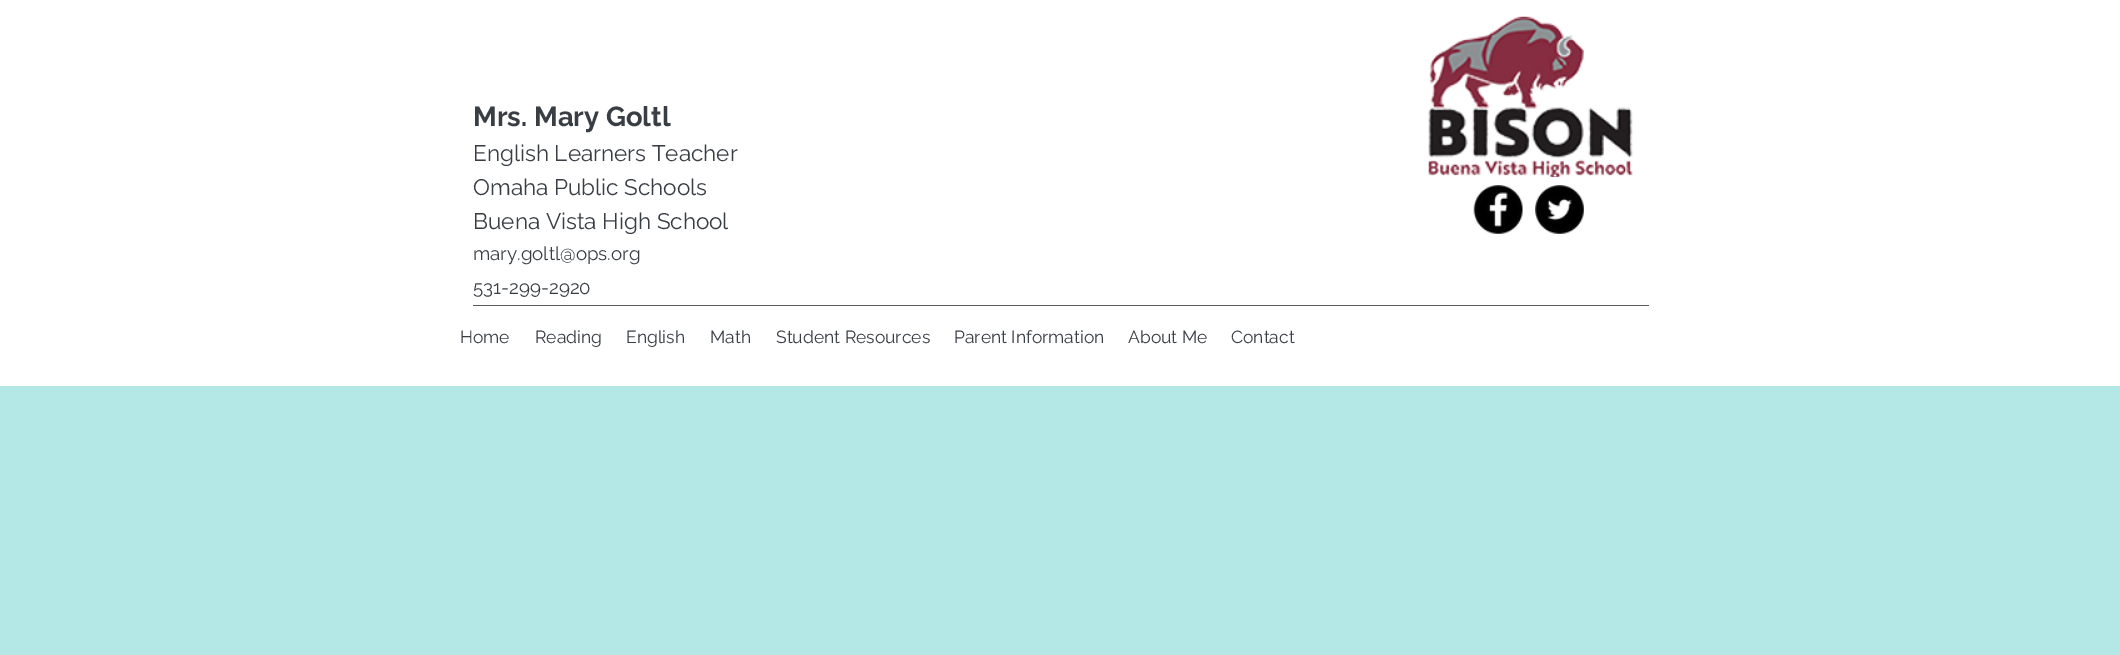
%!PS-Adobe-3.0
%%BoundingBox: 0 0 2120 655
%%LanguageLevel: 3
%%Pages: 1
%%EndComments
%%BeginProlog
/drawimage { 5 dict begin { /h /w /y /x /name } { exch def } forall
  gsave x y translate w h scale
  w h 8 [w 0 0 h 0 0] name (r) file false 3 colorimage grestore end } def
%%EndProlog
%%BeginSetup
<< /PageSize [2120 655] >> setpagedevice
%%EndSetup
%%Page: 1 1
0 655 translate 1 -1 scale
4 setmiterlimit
0.706 0.91 0.906 setrgbcolor
0 0 2120 655 rectfill
1 setgray
0 0 2120 386 rectfill
(images/1.raw) 1428 16 205 162 drawimage
(images/2.raw) 1473 185 50 49 drawimage
(images/3.raw) 1535 185 49 49 drawimage
0.341 0.357 0.376 setrgbcolor
473 305 1176 1 rectfill
/Raleway-Bold [27.5 0 0 -27.5 0 0] selectfont
0.224 0.243 0.267 setrgbcolor
473 126 moveto (Mrs. Mary Goltl) show
/Raleway-Regular [22.5 0 0 -22.5 0 0] selectfont
473 161 moveto (English Learners Teacher) show
473 195 moveto (Omaha Public Schools) show
473 229 moveto (Buena Vista High School) show
/Raleway-Regular [18.75 0 0 -18.75 0 0] selectfont
473 260 moveto (mary.goltl@ops.org) show
473 294 moveto (531-299-2920) show
/Raleway-Regular [17.5 0 0 -17.5 0 0] selectfont
460 343 moveto (Home) show
535 343 moveto (Reading) show
626 343 moveto (English) show
710 343 moveto (Math) show
776 343 moveto (Student Resources) show
954 343 moveto (Parent Information) show
1128 343 moveto (About Me) show
1231 343 moveto (Contact) show
showpage
%%EOF
